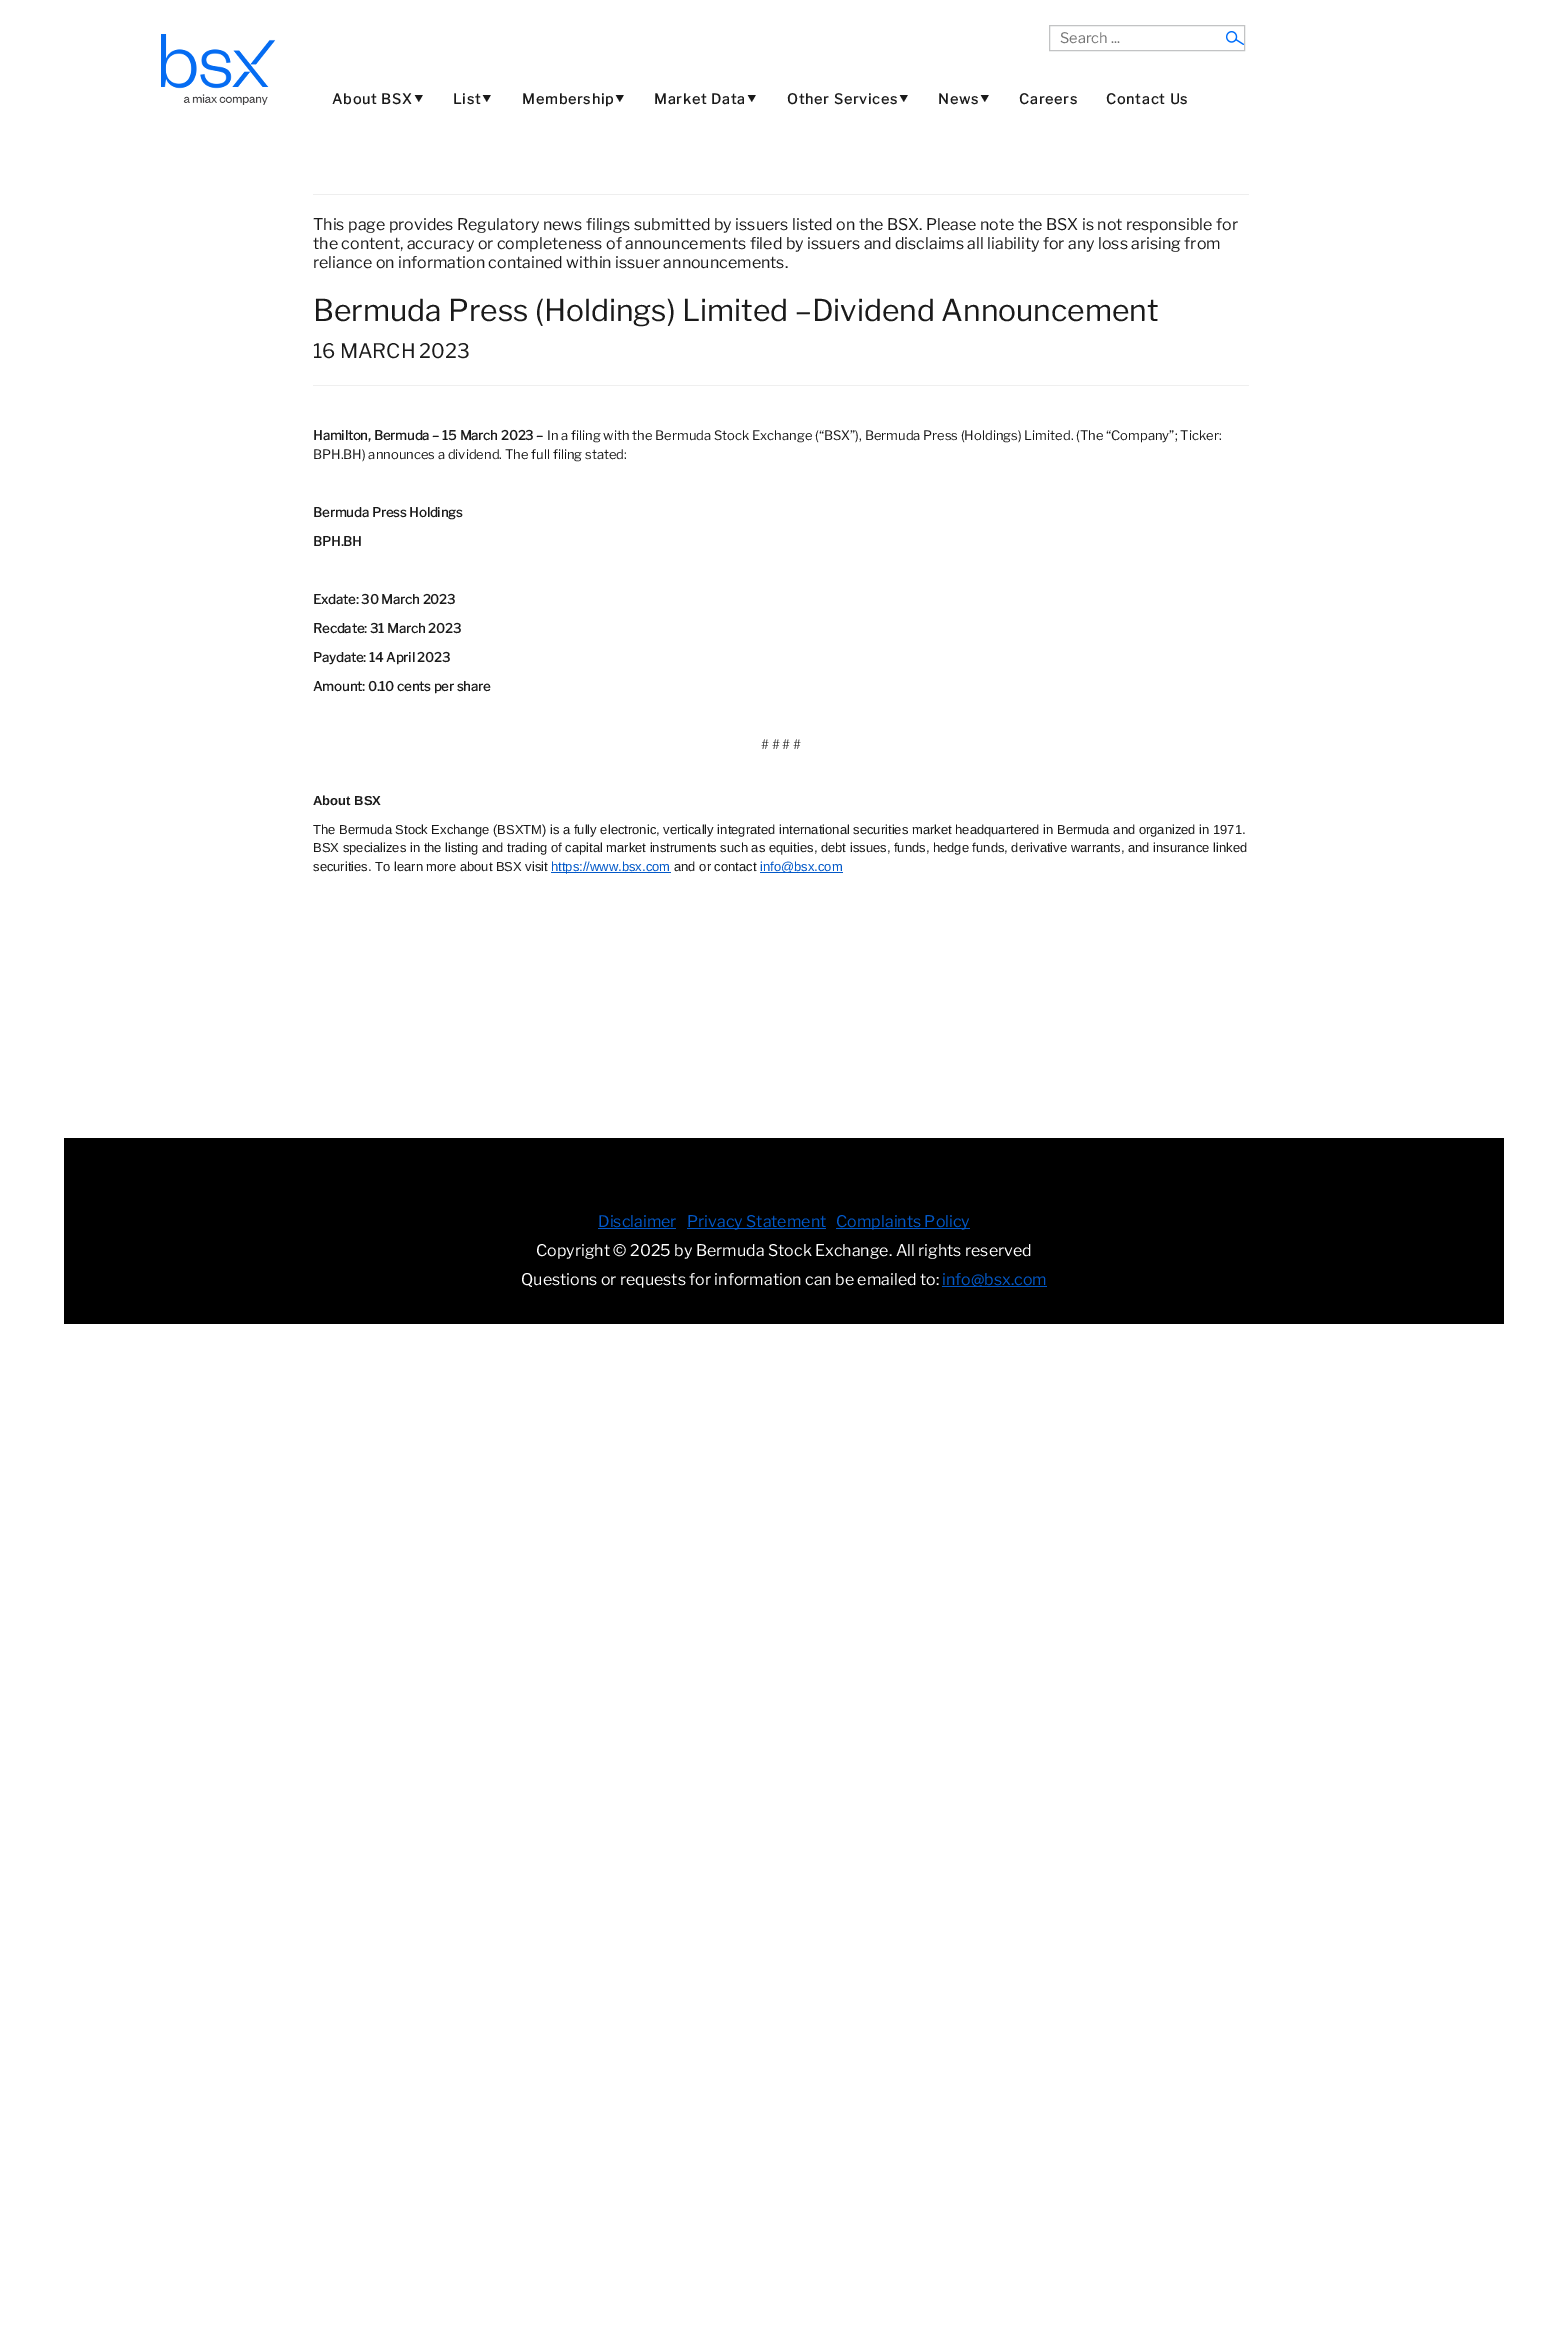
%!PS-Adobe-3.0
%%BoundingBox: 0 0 1568 2328
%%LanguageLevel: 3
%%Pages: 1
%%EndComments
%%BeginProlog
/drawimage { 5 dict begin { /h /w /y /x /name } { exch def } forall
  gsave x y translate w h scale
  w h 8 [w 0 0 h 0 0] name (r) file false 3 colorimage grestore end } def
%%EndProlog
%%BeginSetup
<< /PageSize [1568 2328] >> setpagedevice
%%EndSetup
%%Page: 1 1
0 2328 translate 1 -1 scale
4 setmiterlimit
1 setgray
0 0 1568 2328 rectfill
(images/1.raw) 161 34 115 71 drawimage
(images/2.raw) 1226 31 18 14 drawimage
0.761 0.765 0.769 setrgbcolor
1049.5 25.5 195 25 rectstroke
0.933 setgray
313 194 936 1 rectfill
0.937 setgray
313 385 936 1 rectfill
0.008 0.345 0.784 setrgbcolor
551 872 120 1 rectfill
760 872 83 1 rectfill
0 setgray
64 1138 1440 186 rectfill
0.008 0.345 0.784 setrgbcolor
598 1228 78 1 rectfill
687 1228 139 1 rectfill
836 1228 134 1 rectfill
942 1286 105 1 rectfill
/LibreFranklin-Thin [14.5 0 0 -14.5 0 0] selectfont
0.459 setgray
1060 43 moveto (Search ...) show
/LibreFranklin-Bold [14 0 0 -14 0 0] selectfont
0.102 setgray
332 104 moveto 1 0 (About BSX) ashow
/FreeSans-Bold [14 0 0 -14 0 0] selectfont
413 104 moveto 1 0 (⯆) ashow
/LibreFranklin-Bold [14 0 0 -14 0 0] selectfont
453 104 moveto 1 0 (List) ashow
/FreeSans-Bold [14 0 0 -14 0 0] selectfont
481 104 moveto 1 0 (⯆) ashow
/LibreFranklin-Bold [14 0 0 -14 0 0] selectfont
522 104 moveto 1 0 (Membership) ashow
/FreeSans-Bold [14 0 0 -14 0 0] selectfont
614 104 moveto 1 0 (⯆) ashow
/LibreFranklin-Bold [14 0 0 -14 0 0] selectfont
654 104 moveto 1 0 (Market Data) ashow
/FreeSans-Bold [14 0 0 -14 0 0] selectfont
746 104 moveto 1 0 (⯆) ashow
/LibreFranklin-Bold [14 0 0 -14 0 0] selectfont
787 104 moveto 1 0 (Other Services) ashow
/FreeSans-Bold [14 0 0 -14 0 0] selectfont
898 104 moveto 1 0 (⯆) ashow
/LibreFranklin-Bold [14 0 0 -14 0 0] selectfont
938 104 moveto 1 0 (News) ashow
/FreeSans-Bold [14 0 0 -14 0 0] selectfont
979 104 moveto 1 0 (⯆) ashow
/LibreFranklin-Bold [14 0 0 -14 0 0] selectfont
1019 104 moveto 1 0 (Careers) ashow
1106 104 moveto 1 0 (Contact Us) ashow
/LibreFranklin-Thin [16 0 0 -16 0 0] selectfont
313 230 moveto (This page provides Regulatory news filings submitted by issuers listed on the BSX. Please note the BSX is not responsible for) show
313 249 moveto (the content, accuracy or completeness of announcements filed by issuers and disclaims all liability for any loss arising from) show
313 268 moveto (reliance on information contained within issuer announcements.) show
/LibreFranklin-Thin [30 0 0 -30 0 0] selectfont
313 321 moveto (Bermuda Press \(Holdings\) Limited –Dividend Announcement) show
/LibreFranklin-Thin [20 0 0 -20 0 0] selectfont
313 358 moveto (16 MARCH 2023) show
/LibreFranklin-Bold [13 0 0 -13 0 0] selectfont
313 440 moveto (Hamilton, Bermuda – 15 March 2023 –) show
/LibreFranklin-Thin [13 0 0 -13 0 0] selectfont
547 440 moveto (In a filing with the Bermuda Stock Exchange \(“BSX”\), Bermuda Press \(Holdings\) Limited. \(The “Company”; Ticker:) show
313 459 moveto (BPH.BH\) announces a dividend. The full filing stated:) show
/LibreFranklin-Bold [13 0 0 -13 0 0] selectfont
313 517 moveto (Bermuda Press Holdings) show
313 546 moveto (BPH.BH) show
313 604 moveto (Exdate: 30 March 2023) show
313 633 moveto (Recdate: 31 March 2023) show
313 662 moveto (Paydate: 14 April 2023) show
313 691 moveto (Amount: 0.10 cents per share) show
/LibreFranklin-Thin [13 0 0 -13 0 0] selectfont
761 749 moveto (# # # #) show
/LiberationSans-Bold [13 0 0 -13 0 0] selectfont
313 805 moveto (About BSX) show
/LiberationSans-Regular [13 0 0 -13 0 0] selectfont
313 834 moveto (The Bermuda Stock Exchange \(BSXTM\) is a fully electronic, vertically integrated international securities market headquartered in Bermuda and organized in 1971.) show
313 852 moveto (BSX specializes in the listing and trading of capital market instruments such as equities, debt issues, funds, hedge funds, derivative warrants, and insurance linked) show
313 871 moveto (securities. To learn more about BSX visit) show
0.008 0.345 0.784 setrgbcolor
551 871 moveto (https://www.bsx.com) show
0.102 setgray
674 871 moveto (and or contact) show
0.008 0.345 0.784 setrgbcolor
760 871 moveto (info@bsx.com) show
/LibreFranklin-Thin [16 0 0 -16 0 0] selectfont
598 1227 moveto (Disclaimer) show
687 1227 moveto (Privacy Statement) show
836 1227 moveto (Complaints Policy) show
1 setgray
536 1256 moveto (Copyright © 2025 by Bermuda Stock Exchange. All rights reserved) show
521 1285 moveto (Questions or requests for information can be emailed to:) show
0.008 0.345 0.784 setrgbcolor
942 1285 moveto (info@bsx.com) show
showpage
%%EOF
